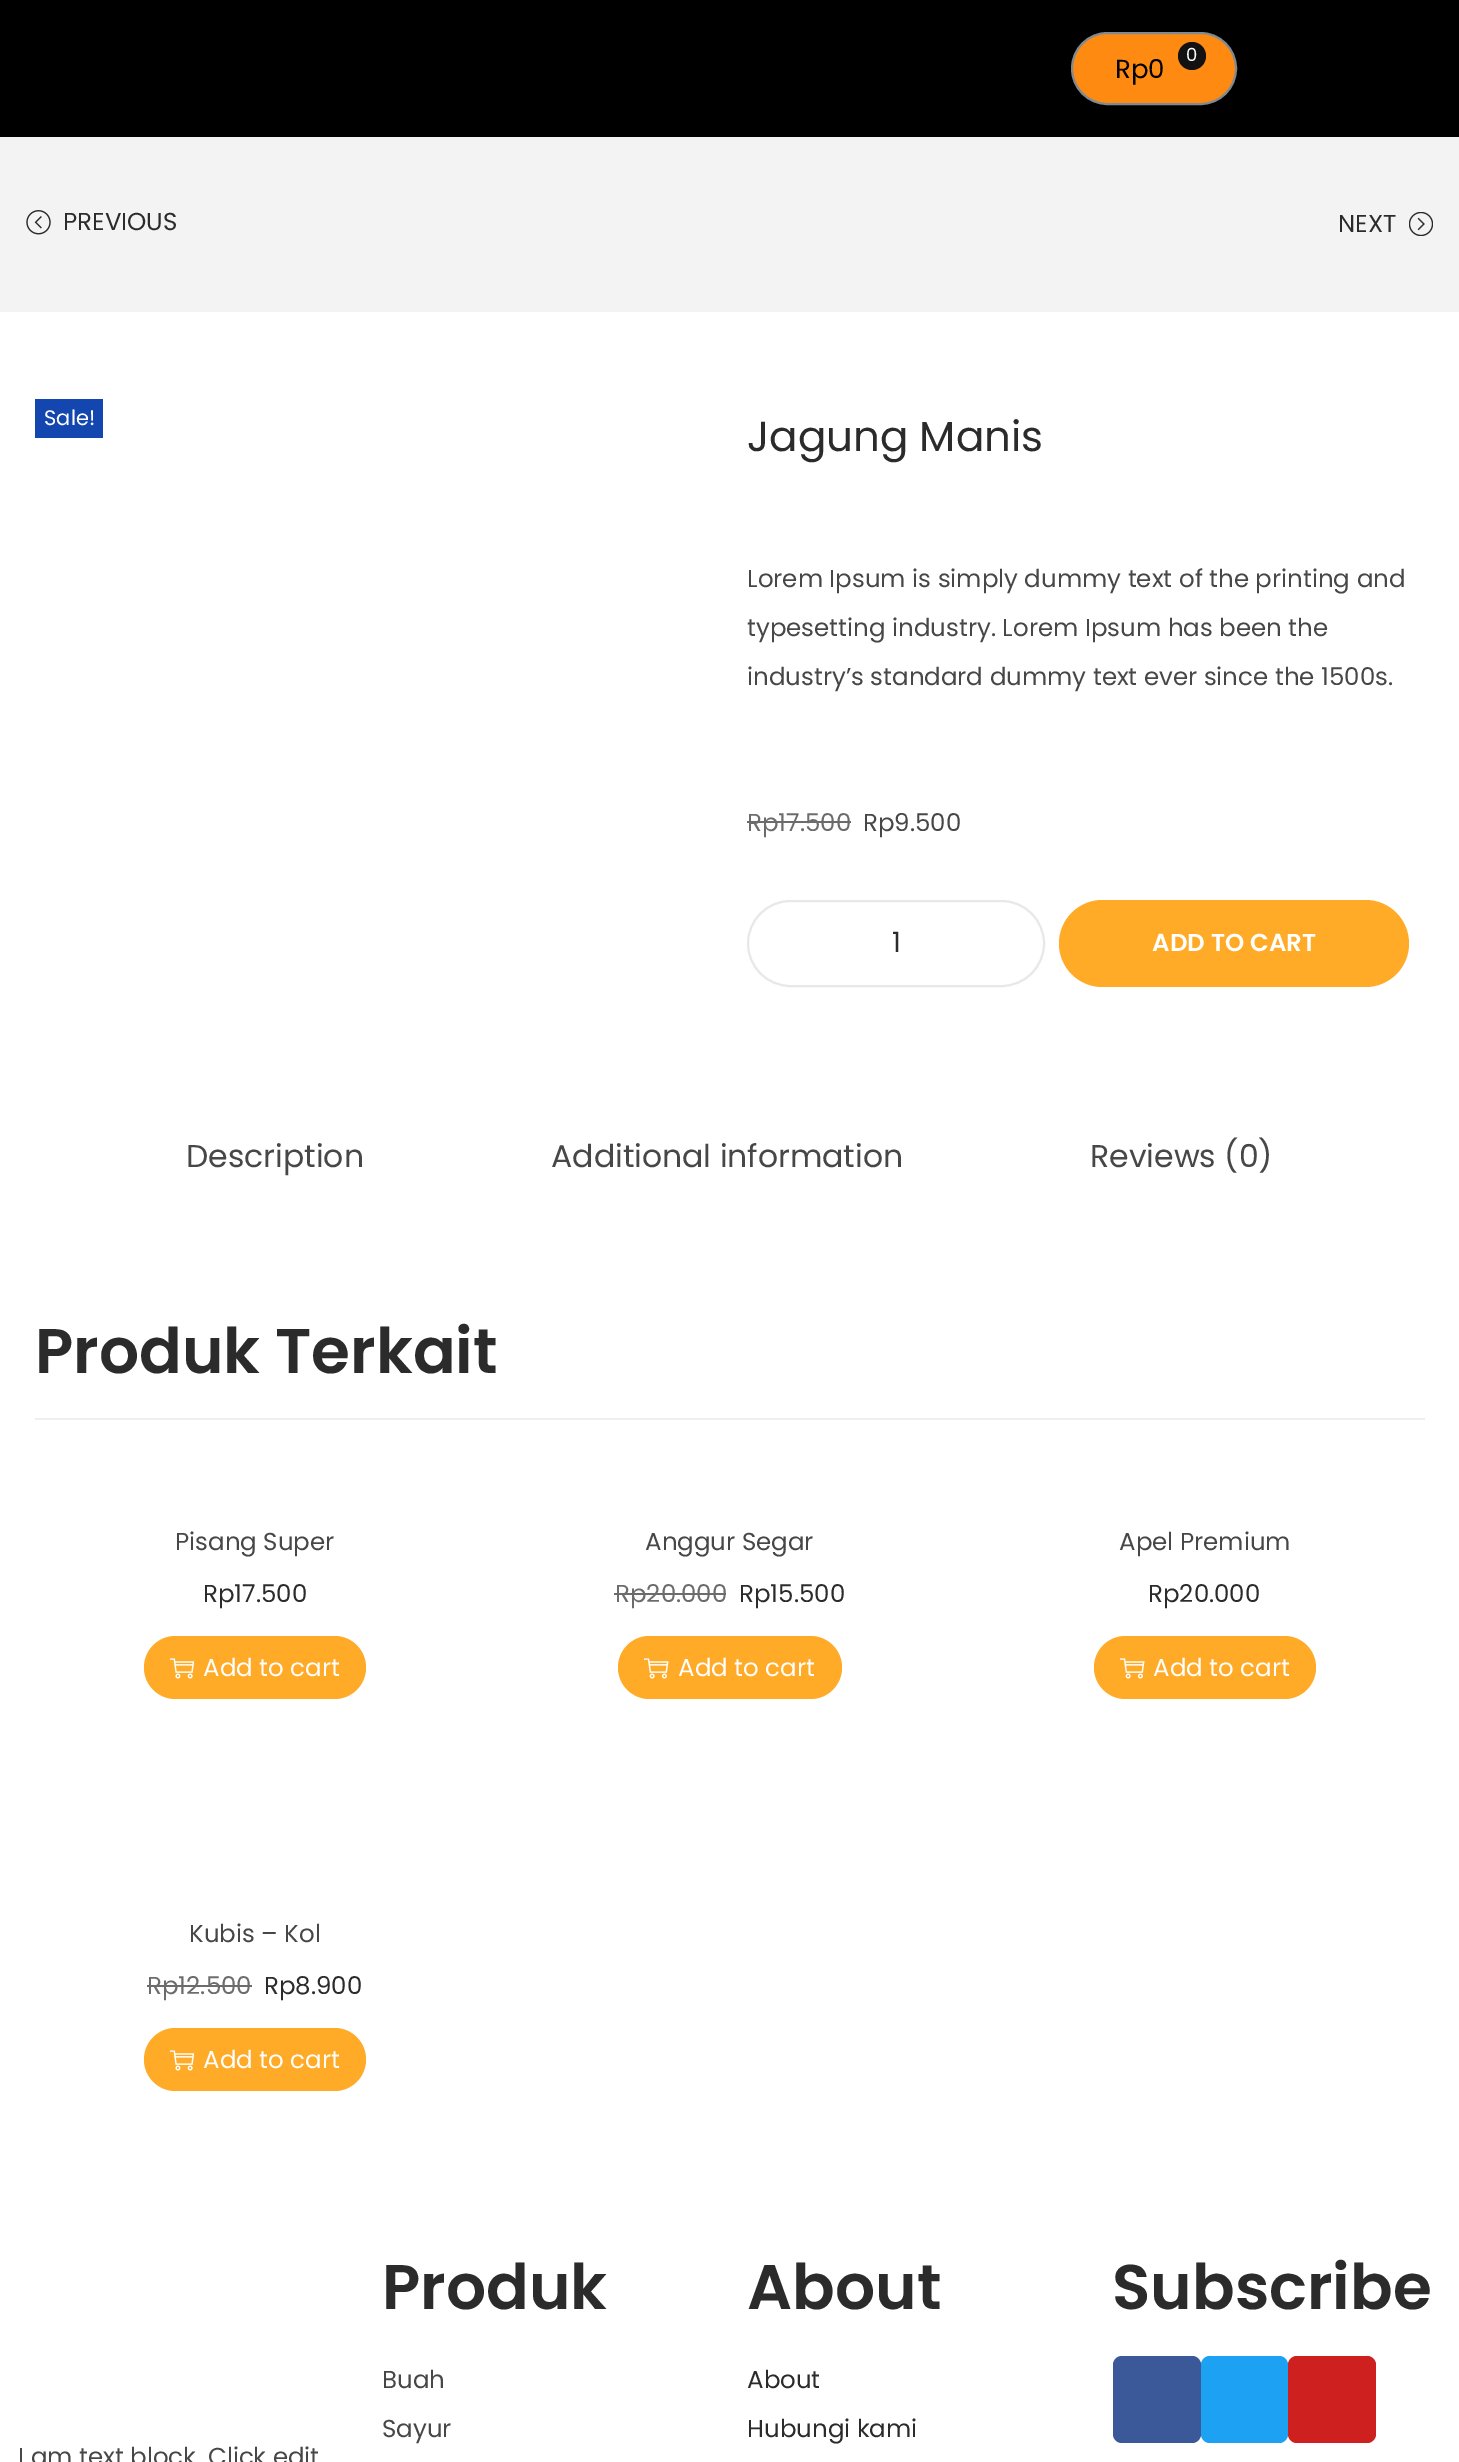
%!PS-Adobe-3.0
%%BoundingBox: 0 0 1459 2462
%%LanguageLevel: 3
%%Pages: 1
%%EndComments
%%BeginProlog
/rrect { 5 dict begin { /r /h /w /y /x } { exch def } forall
  x r add y moveto x w add y 2 copy h add r arct x w add y h add x 1 index r arct
  x y h add x y r arct x y 2 copy exch w add exch r arct closepath end } def
/drawimage { 5 dict begin { /h /w /y /x /name } { exch def } forall
  gsave x y translate w h scale
  w h 8 [w 0 0 h 0 0] name (r) file false 3 colorimage grestore end } def
%%EndProlog
%%BeginSetup
<< /PageSize [1459 2462] >> setpagedevice
%%EndSetup
%%Page: 1 1
0 2462 translate 1 -1 scale
4 setmiterlimit
1 setgray
0 0 1459 2462 rectfill
0 setgray
0 0 1459 137 rectfill
1 0.541 0.067 setrgbcolor
1072 33 164 71 35.5 rrect gsave fill grestore
0.506 0.541 0.569 setrgbcolor
2 setlinewidth
stroke
0.071 setgray
newpath 1192 56 14 0 360 arc closepath fill
0.953 setgray
0 137 1459 175 rectfill
(images/1.raw) 26 210 25 25 drawimage
(images/2.raw) 1409 212 24 24 drawimage
0.075 0.275 0.686 setrgbcolor
35 399 68 39 rectfill
0.424 setgray
747 821 104 2 rectfill
0.91 setgray
748 901 296 85 42.5 rrect stroke
1 0.671 0.153 setrgbcolor
1059 900 350 87 43.5 rrect fill
0.937 setgray
35 1418 1390 2 rectfill
1 0.671 0.153 setrgbcolor
144 1636 222 63 31.5 rrect fill
(images/3.raw) 170 1658 24 21 drawimage
0.424 setgray
614 1593 112 2 rectfill
1 0.671 0.153 setrgbcolor
618 1636 224 63 31.5 rrect fill
(images/4.raw) 644 1658 25 21 drawimage
1094 1636 222 63 31.5 rrect fill
(images/4.raw) 1120 1658 25 21 drawimage
0.424 setgray
147 1985 105 2 rectfill
1 0.671 0.153 setrgbcolor
144 2028 222 63 31.5 rrect fill
(images/3.raw) 170 2050 24 21 drawimage
0.231 0.349 0.596 setrgbcolor
1113 2356 88 87 9 rrect fill
0.114 0.631 0.949 setrgbcolor
1201 2356 87 87 9 rrect fill
0.804 0.125 0.122 setrgbcolor
1288 2356 88 87 9 rrect fill
/Poppins-Regular [18 0 0 -18 0 0] selectfont
1 setgray
1186 61 moveto (0) show
/Poppins-Regular [26 0 0 -26 0 0] selectfont
0 setgray
1115 78 moveto (Rp0) show
/Poppins-Regular [24.5 0 0 -24.5 0 0] selectfont
0.169 setgray
63 230 moveto (PREVIOUS) show
1338 232 moveto (NEXT) show
/Poppins-Regular [21 0 0 -21 0 0] selectfont
1 setgray
44 425 moveto (Sale!) show
/Poppins-Regular [42 0 0 -42 0 0] selectfont
0.169 setgray
747 451 moveto (Jagung Manis) show
/Poppins-Regular [24.5 0 0 -24.5 0 0] selectfont
0.278 setgray
747 587 moveto (Lorem Ipsum is simply dummy text of the printing and) show
747 636 moveto (typesetting industry. Lorem Ipsum has been the) show
747 685 moveto (industry’s standard dummy text ever since the 1500s.) show
0.424 setgray
747 831 moveto (Rp17.500) show
0.278 setgray
863 831 moveto (Rp9.500) show
/Poppins-Regular [28 0 0 -28 0 0] selectfont
0.169 setgray
892 952 moveto (1) show
/Poppins-SemiBold [24.5 0 0 -24.5 0 0] selectfont
1 setgray
1152 951 moveto (ADD TO CART) show
/Poppins-Regular [31.5 0 0 -31.5 0 0] selectfont
0.278 setgray
186 1167 moveto (Description) show
551 1167 moveto (Additional information) show
1090 1167 moveto (Reviews \(0\)) show
/Poppins-SemiBold [63 0 0 -63 0 0] selectfont
0.169 setgray
35 1373 moveto (Produk Terkait) show
/Poppins-Regular [24.5 0 0 -24.5 0 0] selectfont
0.278 setgray
175 1550 moveto (Pisang Super) show
0.169 setgray
203 1602 moveto (Rp17.500) show
1 setgray
203 1676 moveto (Add to cart) show
0.278 setgray
645 1550 moveto (Anggur Segar) show
0.424 setgray
615 1602 moveto (Rp20.000) show
0.169 setgray
739 1602 moveto (Rp15.500) show
1 setgray
678 1676 moveto (Add to cart) show
0.278 setgray
1119 1550 moveto (Apel Premium) show
0.169 setgray
1148 1602 moveto (Rp20.000) show
1 setgray
1153 1676 moveto (Add to cart) show
0.278 setgray
189 1942 moveto (Kubis – Kol) show
0.424 setgray
147 1994 moveto (Rp12.500) show
0.169 setgray
264 1994 moveto (Rp8.900) show
1 setgray
203 2068 moveto (Add to cart) show
/Poppins-SemiBold [63 0 0 -63 0 0] selectfont
0.169 setgray
382 2309 moveto (Produk) show
/Poppins-Regular [24.5 0 0 -24.5 0 0] selectfont
0.278 setgray
382 2388 moveto (Buah) show
382 2437 moveto (Sayur) show
/Poppins-SemiBold [63 0 0 -63 0 0] selectfont
0.169 setgray
747 2309 moveto (About) show
/Poppins-Regular [24.5 0 0 -24.5 0 0] selectfont
747 2388 moveto (About) show
747 2437 moveto (Hubungi kami) show
/Poppins-SemiBold [63 0 0 -63 0 0] selectfont
1112 2309 moveto (Subscribe) show
/Poppins-Regular [24.5 0 0 -24.5 0 0] selectfont
0.278 setgray
18 2465 moveto (I am text block. Click edit) show
showpage
%%EOF
